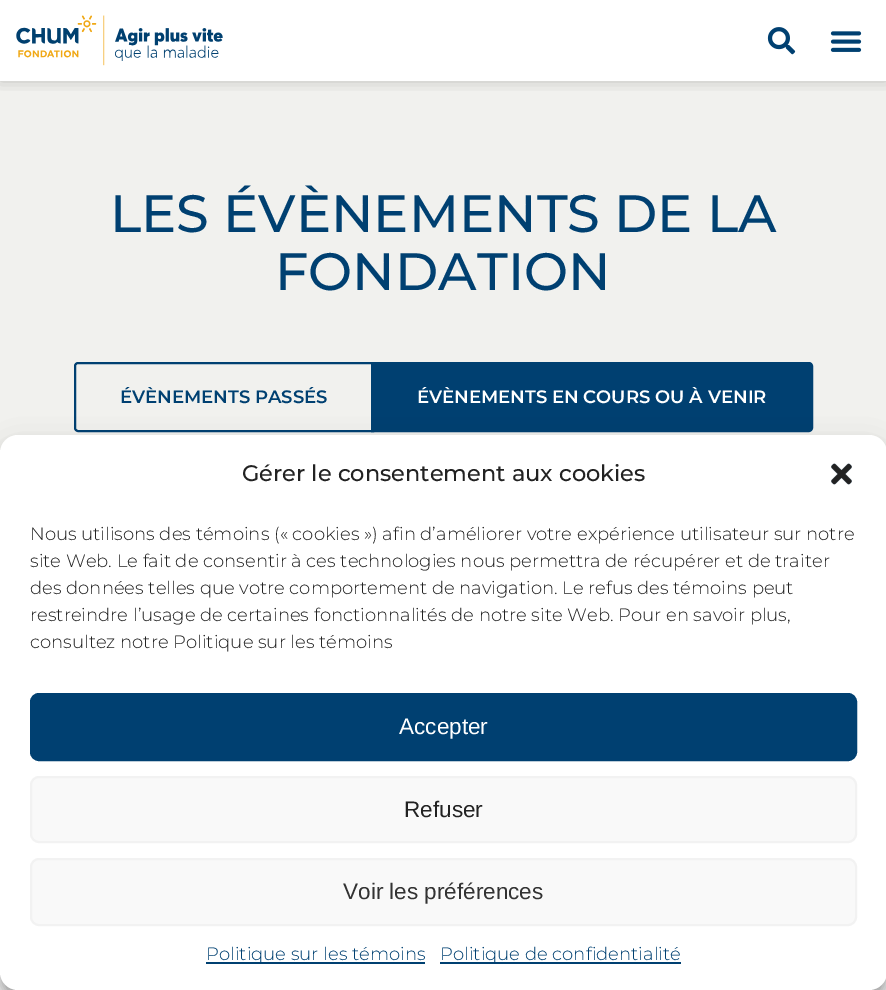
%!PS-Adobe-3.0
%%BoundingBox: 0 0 886 990
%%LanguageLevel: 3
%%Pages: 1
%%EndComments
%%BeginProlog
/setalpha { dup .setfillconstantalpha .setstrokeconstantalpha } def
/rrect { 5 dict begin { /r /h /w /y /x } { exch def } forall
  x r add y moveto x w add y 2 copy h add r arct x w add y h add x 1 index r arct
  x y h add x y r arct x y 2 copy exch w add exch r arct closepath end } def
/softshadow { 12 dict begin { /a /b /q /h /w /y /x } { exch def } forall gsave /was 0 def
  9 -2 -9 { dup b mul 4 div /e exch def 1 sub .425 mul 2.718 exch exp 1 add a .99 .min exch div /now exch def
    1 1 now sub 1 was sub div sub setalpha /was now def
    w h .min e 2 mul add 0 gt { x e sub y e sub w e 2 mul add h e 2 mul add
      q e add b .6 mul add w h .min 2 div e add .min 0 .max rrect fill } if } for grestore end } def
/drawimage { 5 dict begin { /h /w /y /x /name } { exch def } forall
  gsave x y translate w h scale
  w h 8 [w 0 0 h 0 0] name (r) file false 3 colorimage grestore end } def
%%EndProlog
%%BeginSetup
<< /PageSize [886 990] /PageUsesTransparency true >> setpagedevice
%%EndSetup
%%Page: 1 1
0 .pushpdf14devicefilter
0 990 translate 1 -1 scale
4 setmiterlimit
1 setgray
0 0 886 990 rectfill
0.945 0.945 0.933 setrgbcolor
0 81 886 372 rectfill
gsave
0 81 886 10 rectclip
0 setgray
0 0 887 81 0 7.5 0.2 softshadow
grestore
(images/1.raw) 16 15 207 51 drawimage
(images/2.raw) 767 27 29 28 drawimage
(images/3.raw) 830 31 32 21 drawimage
0 0.251 0.443 setrgbcolor
2 setlinewidth
newpath 78 363 moveto 373 363 lineto 373 431 lineto 78 431 lineto 76.5 431 75 429.5 75 428 curveto 75 366 lineto 75 364.5 76.5 363 78 363 curveto closepath stroke
newpath 372 363 moveto 809 363 lineto 810.5 363 812 364.5 812 366 curveto 812 428 lineto 812 429.5 810.5 431 809 431 curveto 372 431 lineto closepath gsave fill grestore
stroke
0 setgray
0 444 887 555 18 4.5 0.23 softshadow
0 450 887 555 18 15 0.19 softshadow
1 setgray
0 435 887 555 18 rrect fill
(images/4.raw) 831 463 21 22 drawimage
0 0.251 0.443 setrgbcolor
31 694 825 66 8 rrect gsave fill grestore
stroke
0.976 setgray
31 777 825 65 8 rrect gsave fill grestore
0.949 setgray
stroke
0.976 setgray
31 859 825 66 8 rrect gsave fill grestore
0.949 setgray
stroke
0 0.251 0.443 setrgbcolor
206 962 219 2 rectfill
440 962 241 2 rectfill
/Montserrat-Medium [52.5 0 0 -52.5 0 0] selectfont
110 232 moveto (LES ÉVÈNEMENTS DE LA) show
275 290 moveto (FONDATION) show
/Montserrat-SemiBold [18 0 0 -18 0 0] selectfont
120 403 moveto (ÉVÈNEMENTS PASSÉS) show
1 setgray
417 403 moveto (ÉVÈNEMENTS EN COURS OU À VENIR) show
/Montserrat-Medium [22.5 0 0 -22.5 0 0] selectfont
0.133 setgray
242 481 moveto (Gérer le consentement aux cookies) show
/Montserrat-Light [18 0 0 -18 0 0] selectfont
30 540 moveto (Nous utilisons des témoins \(« cookies »\) afin d’améliorer votre expérience utilisateur sur notre) show
30 567 moveto (site Web. Le fait de consentir à ces technologies nous permettra de récupérer et de traiter) show
30 594 moveto (des données telles que votre comportement de navigation. Le refus des témoins peut) show
30 621 moveto (restreindre l’usage de certaines fonctionnalités de notre site Web. Pour en savoir plus,) show
30 648 moveto (consultez notre Politique sur les témoins) show
/LiberationSans-Regular [22.5 0 0 -22.5 0 0] selectfont
1 setgray
399 734 moveto (Accepter) show
0.133 setgray
404 817 moveto (Refuser) show
0.2 setgray
343 899 moveto (Voir les préférences) show
/Montserrat-Light [18 0 0 -18 0 0] selectfont
0 0.251 0.443 setrgbcolor
206 960 moveto (Politique sur les témoins) show
440 960 moveto (Politique de confidentialité) show
.poppdf14devicefilter showpage
%%EOF
